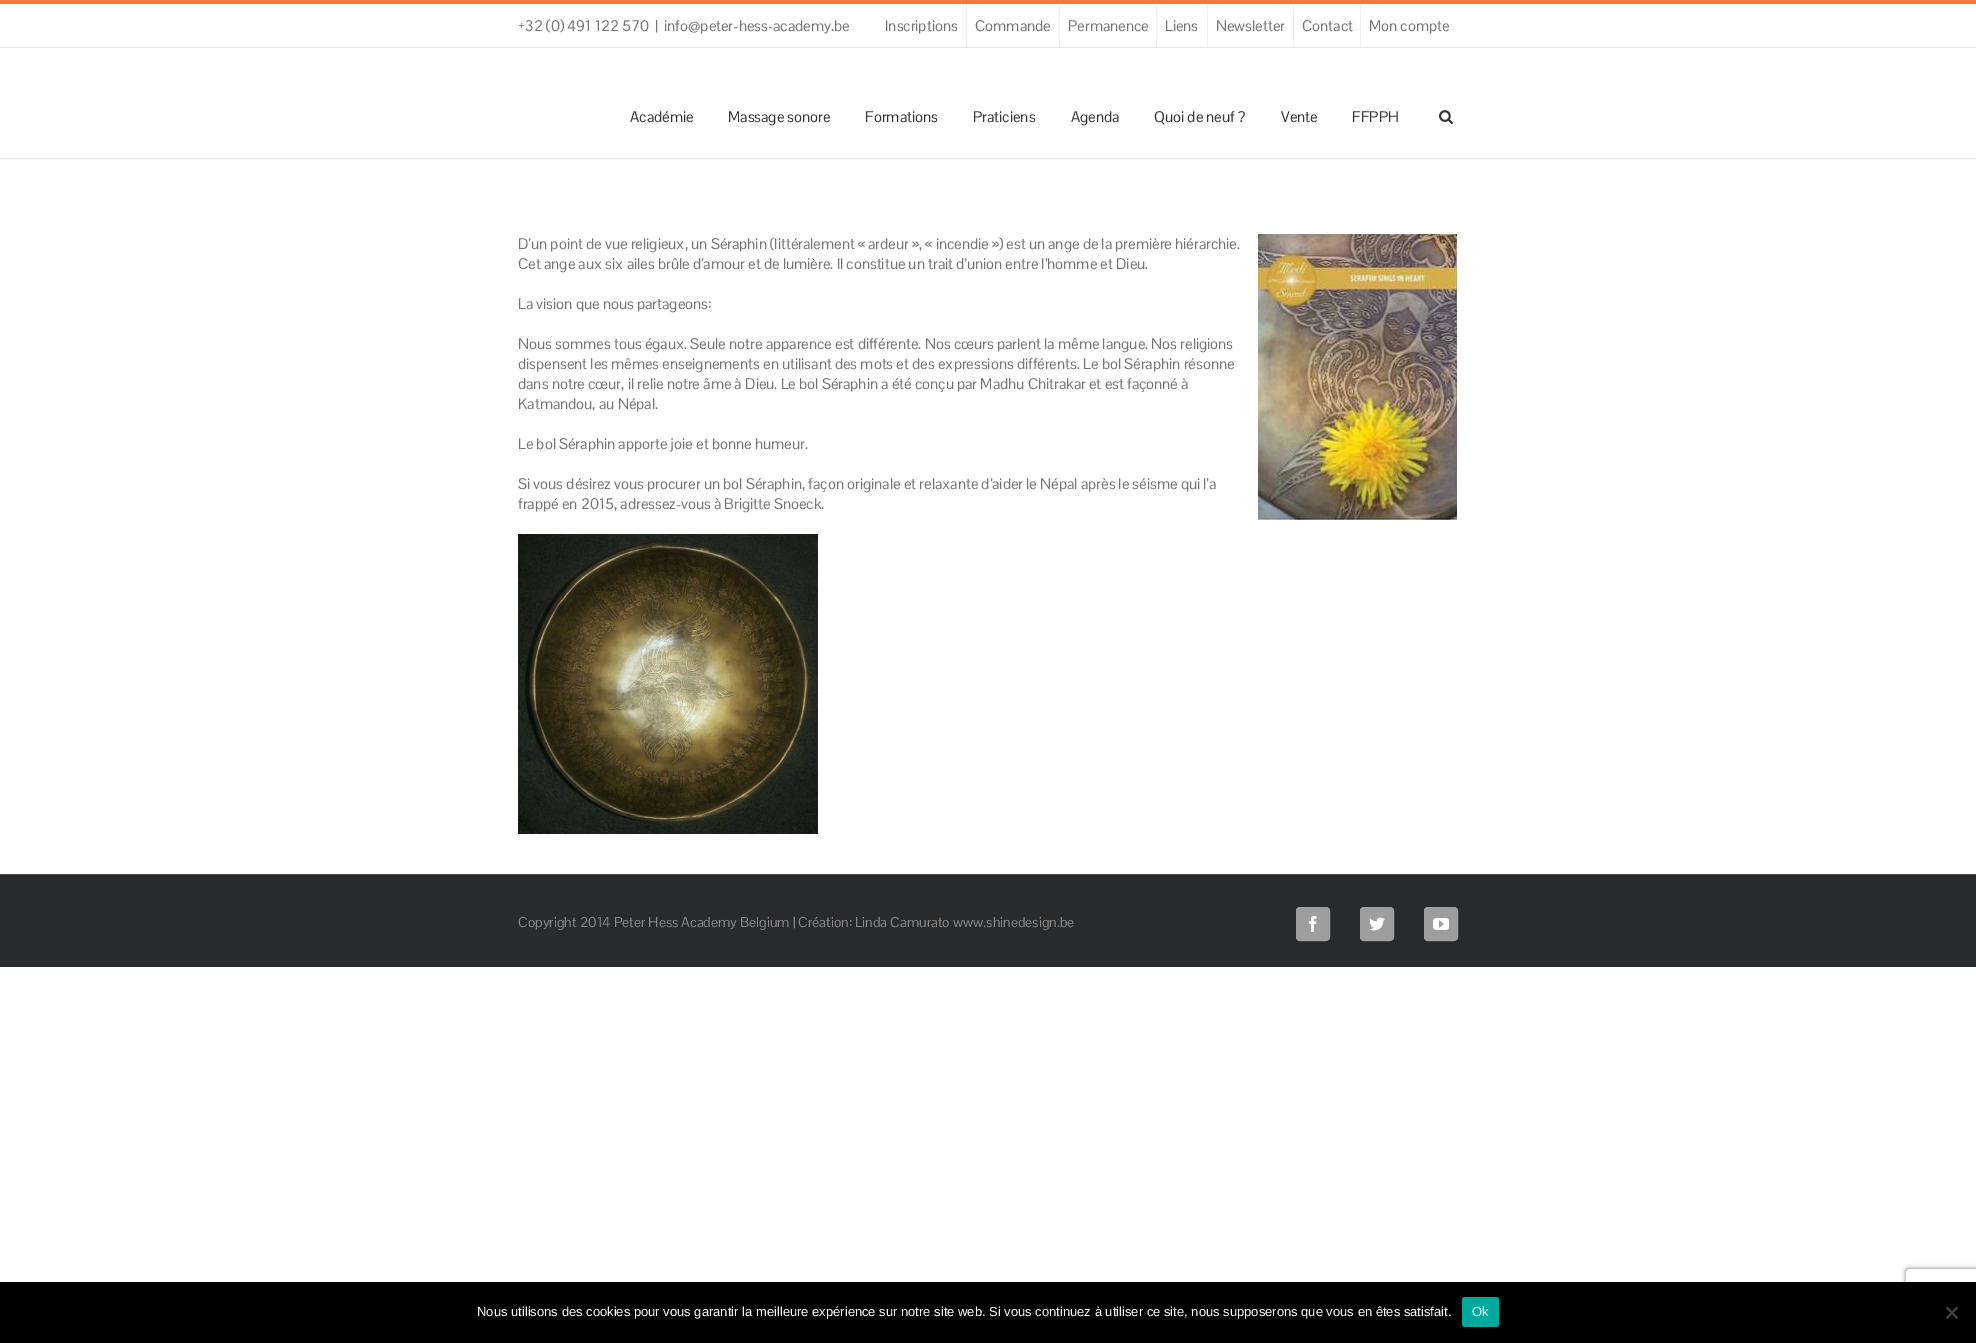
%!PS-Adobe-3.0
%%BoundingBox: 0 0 1976 1343
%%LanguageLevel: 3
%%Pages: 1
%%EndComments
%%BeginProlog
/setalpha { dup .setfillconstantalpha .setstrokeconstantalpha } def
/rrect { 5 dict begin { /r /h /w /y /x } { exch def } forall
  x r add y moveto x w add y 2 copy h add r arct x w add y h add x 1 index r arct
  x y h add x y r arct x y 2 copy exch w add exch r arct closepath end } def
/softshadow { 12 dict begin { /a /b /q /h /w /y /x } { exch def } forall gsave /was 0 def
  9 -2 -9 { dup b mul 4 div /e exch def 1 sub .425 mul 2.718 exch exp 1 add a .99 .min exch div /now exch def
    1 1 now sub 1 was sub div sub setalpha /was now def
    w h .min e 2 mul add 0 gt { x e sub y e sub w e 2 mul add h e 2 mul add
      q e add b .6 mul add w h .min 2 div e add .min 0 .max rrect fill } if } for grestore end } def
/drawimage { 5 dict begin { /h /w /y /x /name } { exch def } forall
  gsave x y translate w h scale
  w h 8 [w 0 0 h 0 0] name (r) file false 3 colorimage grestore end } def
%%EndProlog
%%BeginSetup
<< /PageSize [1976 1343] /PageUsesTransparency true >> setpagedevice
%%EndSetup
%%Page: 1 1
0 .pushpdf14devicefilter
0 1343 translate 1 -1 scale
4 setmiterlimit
1 setgray
0 0 1976 1343 rectfill
0.949 0.486 0.216 setrgbcolor
0 0 1976 4 rectfill
0.898 setgray
0 47 1976 1 rectfill
0.937 setgray
966 4 1 43 rectfill
1059 4 1 43 rectfill
1156 4 1 43 rectfill
1207 4 1 43 rectfill
1293 4 1 43 rectfill
1360 4 1 43 rectfill
0.898 setgray
0 158 1976 1 rectfill
(images/1.raw) 1439 110 14 15 drawimage
(images/2.raw) 1258 234 200 286 drawimage
(images/3.raw) 518 534 300 300 drawimage
0.157 0.165 0.169 setrgbcolor
0 875 1976 92 rectfill
0.294 0.298 0.302 setrgbcolor
0 874 1976 1 rectfill
0.62 setgray
1296.5 907.5 33 33 3.5 rrect gsave fill grestore
stroke
(images/4.raw) 1309 916 8 16 drawimage
1360.5 907.5 33 33 3.5 rrect gsave fill grestore
stroke
(images/5.raw) 1369 917 16 14 drawimage
1424.5 907.5 33 33 3.5 rrect gsave fill grestore
stroke
(images/6.raw) 1433 918 16 12 drawimage
gsave
newpath 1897 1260 moveto 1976 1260 lineto 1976 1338 lineto 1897 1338 lineto closepath 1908 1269 moveto 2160 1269 lineto 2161 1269 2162 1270 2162 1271 curveto 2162 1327 lineto 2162 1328 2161 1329 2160 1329 curveto 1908 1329 lineto 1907 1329 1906 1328 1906 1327 curveto 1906 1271 lineto 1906 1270 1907 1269 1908 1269 curveto closepath eoclip newpath
0.502 setgray
1906 1269 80 60 2 2.5 1 softshadow
grestore
0 setgray
0 1282 1976 61 rectfill
0 0.663 0.616 setrgbcolor
1462 1297 37 30 3 rrect fill
0.251 setgray
newpath 1956.5 1306.5 moveto 1958 1308 lineto 1947.5 1319 lineto 1946 1317.5 lineto closepath fill
newpath 1946 1308 moveto 1947.5 1306.5 lineto 1958 1317.5 lineto 1956.5 1319 lineto closepath fill
/PontanoSans-Regular [15 0 0 -15 0 0] selectfont
0.455 setgray
518 31 moveto (+32 \(0\) 491 122 570) show
655 31 moveto (|) show
664 31 moveto (info@peter-hess-academy.be) show
885 31 moveto (Inscriptions) show
975 31 moveto (Commande) show
1068 31 moveto (Permanence) show
1165 31 moveto (Liens) show
1216 31 moveto (Newsletter) show
1302 31 moveto (Contact) show
1369 31 moveto (Mon compte) show
0.2 setgray
630 122 moveto (Académie) show
728 122 moveto (Massage sonore) show
865 122 moveto (Formations) show
973 122 moveto (Praticiens) show
1071 122 moveto (Agenda) show
1154 122 moveto (Quoi de neuf ?) show
1281 122 moveto (Vente) show
1352 122 moveto (FFPPH) show
0.455 setgray
518 249 moveto (D’un point de vue religieux, un Séraphin \(littéralement « ardeur », « incendie »\) est un ange de la première hiérarchie.) show
518 269 moveto (Cet ange aux six ailes brûle d’amour et de lumière. Il constitue un trait d’union entre l’homme et Dieu.) show
518 309 moveto (La vision que nous partageons:) show
518 349 moveto (Nous sommes tous égaux. Seule notre apparence est différente. Nos cœurs parlent la même langue. Nos religions) show
518 369 moveto (dispensent les mêmes enseignements en utilisant des mots et des expressions différents. Le bol Séraphin résonne) show
518 389 moveto (dans notre cœur, il relie notre âme à Dieu. Le bol Séraphin a été conçu par Madhu Chitrakar et est façonné à) show
518 409 moveto (Katmandou, au Népal.) show
518 449 moveto (Le bol Séraphin apporte joie et bonne humeur.) show
518 489 moveto (Si vous désirez vous procurer un bol Séraphin, façon originale et relaxante d’aider le Népal après le séisme qui l’a) show
518 509 moveto (frappé en 2015, adressez-vous à Brigitte Snoeck.) show
/PontanoSans-Regular [14 0 0 -14 0 0] selectfont
0.549 0.537 0.537 setrgbcolor
518 927 moveto (Copyright 2014 Peter Hess Academy Belgium | Création: Linda Camurato www.shinedesign.be) show
/LiberationSans-Regular [13 0 0 -13 0 0] selectfont
1 setgray
477 1316 moveto (Nous utilisons des cookies pour vous garantir la meilleure expérience sur notre site web. Si vous continuez à utiliser ce site, nous supposerons que vous en êtes satisfait.) show
1472 1316 moveto (Ok) show
.poppdf14devicefilter showpage
%%EOF
